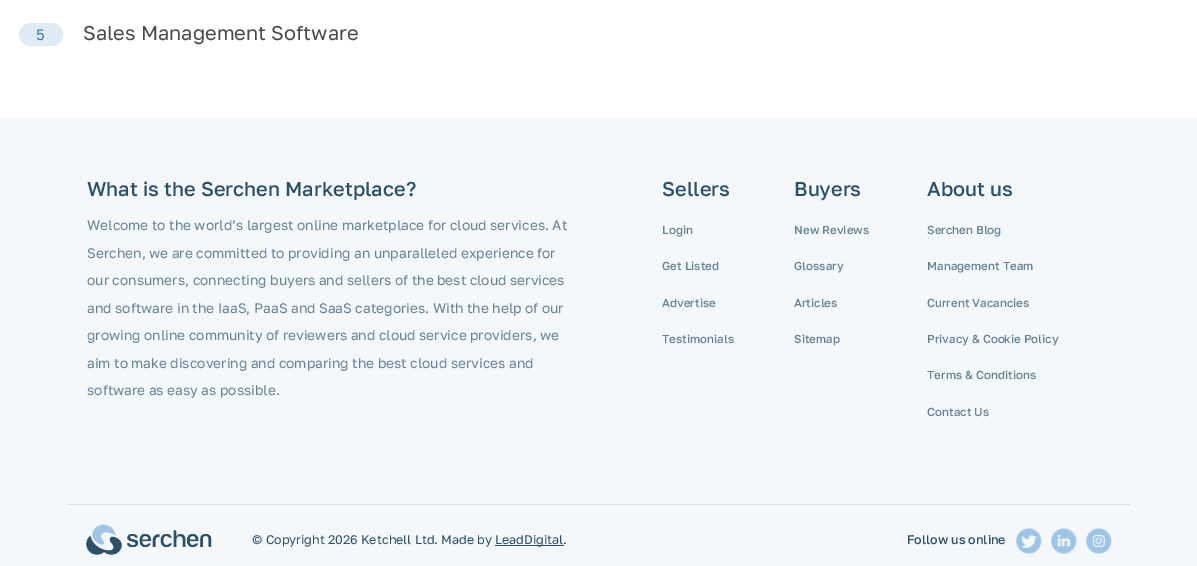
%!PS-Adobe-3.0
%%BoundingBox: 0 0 1197 566
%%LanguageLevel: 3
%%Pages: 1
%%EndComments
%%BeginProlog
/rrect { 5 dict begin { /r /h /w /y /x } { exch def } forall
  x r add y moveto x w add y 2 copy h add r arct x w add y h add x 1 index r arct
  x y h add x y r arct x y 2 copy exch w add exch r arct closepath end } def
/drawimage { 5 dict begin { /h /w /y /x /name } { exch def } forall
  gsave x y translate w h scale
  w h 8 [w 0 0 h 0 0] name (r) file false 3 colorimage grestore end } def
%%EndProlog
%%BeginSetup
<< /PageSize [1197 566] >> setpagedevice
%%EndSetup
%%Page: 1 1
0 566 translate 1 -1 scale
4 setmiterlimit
1 setgray
0 0 1197 566 rectfill
0.875 0.925 0.961 setrgbcolor
19 23 44 23 11.5 rrect fill
0.957 0.973 0.984 setrgbcolor
0 118 1197 448 rectfill
0.863 0.875 0.886 setrgbcolor
68 504 1062 1 rectfill
(images/1.raw) 86 524 126 31 drawimage
0.169 0.314 0.408 setrgbcolor
495 545 69 1 rectfill
(images/2.raw) 1016 528 26 26 drawimage
(images/3.raw) 1051 528 26 26 drawimage
(images/4.raw) 1086 528 26 26 drawimage
/GolosText-Regular [15 0 0 -15 0 0] selectfont
0.259 0.502 0.651 setrgbcolor
36 40 moveto (5) show
/GolosText-Regular [20 0 0 -20 0 0] selectfont
0.29 setgray
83 40 moveto (Sales Management Software) show
/GolosText-Medium [20 0 0 -20 0 0] selectfont
0.169 0.314 0.408 setrgbcolor
87 196 moveto (What is the Serchen Marketplace?) show
/GolosText-Regular [13.75 0 0 -13.75 0 0] selectfont
0.404 0.51 0.58 setrgbcolor
87 230 moveto (Welcome to the world’s largest online marketplace for cloud services. At) show
87 258 moveto (Serchen, we are committed to providing an unparalleled experience for) show
87 285 moveto (our consumers, connecting buyers and sellers of the best cloud services) show
87 313 moveto (and software in the IaaS, PaaS and SaaS categories. With the help of our) show
87 340 moveto (growing online community of reviewers and cloud service providers, we) show
87 368 moveto (aim to make discovering and comparing the best cloud services and) show
87 395 moveto (software as easy as possible.) show
/GolosText-Medium [20 0 0 -20 0 0] selectfont
0.169 0.314 0.408 setrgbcolor
662 196 moveto (Sellers) show
/GolosText-Medium [11.6 0 0 -11.6 0 0] selectfont
0.404 0.51 0.58 setrgbcolor
662 234 moveto (Login) show
662 270 moveto (Get Listed) show
662 307 moveto (Advertise) show
662 343 moveto (Testimonials) show
/GolosText-Medium [20 0 0 -20 0 0] selectfont
0.169 0.314 0.408 setrgbcolor
794 196 moveto (Buyers) show
/GolosText-Medium [11.6 0 0 -11.6 0 0] selectfont
0.404 0.51 0.58 setrgbcolor
794 234 moveto (New Reviews) show
794 270 moveto (Glossary) show
794 307 moveto (Articles) show
794 343 moveto (Sitemap) show
/GolosText-Medium [20 0 0 -20 0 0] selectfont
0.169 0.314 0.408 setrgbcolor
927 196 moveto (About us) show
/GolosText-Medium [11.6 0 0 -11.6 0 0] selectfont
0.404 0.51 0.58 setrgbcolor
927 234 moveto (Serchen Blog) show
927 270 moveto (Management Team) show
927 307 moveto (Current Vacancies) show
927 343 moveto (Privacy & Cookie Policy) show
927 379 moveto (Terms & Conditions) show
927 416 moveto (Contact Us) show
/GolosText-Regular [12.5 0 0 -12.5 0 0] selectfont
0.169 0.314 0.408 setrgbcolor
252 544 moveto (© Copyright 2026 Ketchell Ltd. Made by) show
495 544 moveto (LeadDigital.) show
/GolosText-Medium [12.5 0 0 -12.5 0 0] selectfont
907 544 moveto (Follow us online) show
showpage
%%EOF
